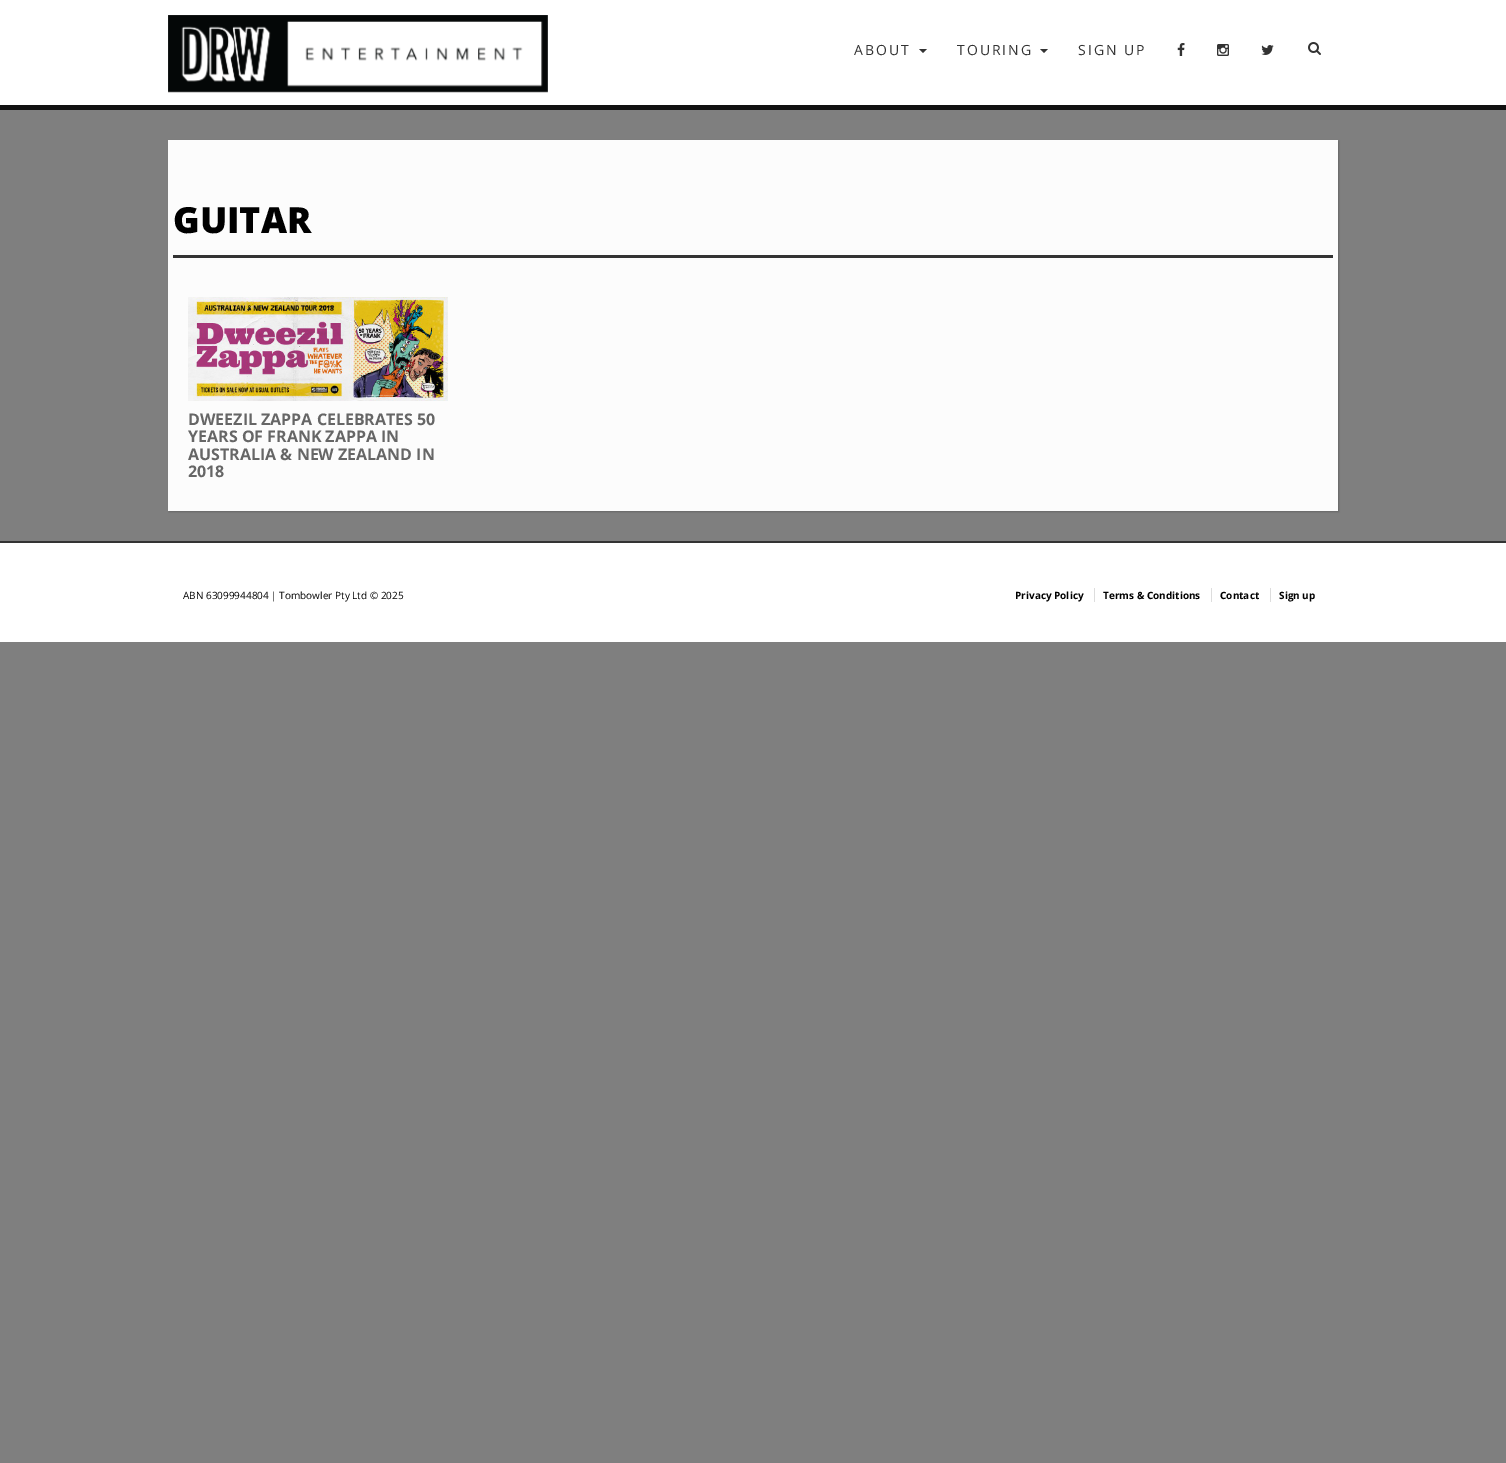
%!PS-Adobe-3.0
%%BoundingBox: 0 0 1506 1463
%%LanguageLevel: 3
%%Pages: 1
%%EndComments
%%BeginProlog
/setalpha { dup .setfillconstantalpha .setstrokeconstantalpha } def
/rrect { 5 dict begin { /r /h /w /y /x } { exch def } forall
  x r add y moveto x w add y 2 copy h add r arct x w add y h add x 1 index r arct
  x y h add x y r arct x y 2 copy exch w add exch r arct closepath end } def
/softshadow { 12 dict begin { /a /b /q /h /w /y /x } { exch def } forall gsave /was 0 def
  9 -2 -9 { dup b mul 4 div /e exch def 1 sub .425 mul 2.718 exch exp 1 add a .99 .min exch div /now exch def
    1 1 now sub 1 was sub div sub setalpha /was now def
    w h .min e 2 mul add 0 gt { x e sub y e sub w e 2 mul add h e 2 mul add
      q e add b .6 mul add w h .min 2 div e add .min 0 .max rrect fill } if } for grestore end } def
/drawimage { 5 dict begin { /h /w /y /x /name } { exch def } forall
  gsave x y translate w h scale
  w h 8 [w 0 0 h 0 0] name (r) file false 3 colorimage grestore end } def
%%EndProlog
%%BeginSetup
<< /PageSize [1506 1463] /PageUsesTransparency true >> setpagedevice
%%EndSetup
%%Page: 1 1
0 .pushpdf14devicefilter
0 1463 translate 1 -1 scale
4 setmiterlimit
0.498 setgray
0 0 1506 1463 rectfill
1 setgray
0 0 1506 105 rectfill
0.067 setgray
0 105 1506 5 rectfill
(images/1.raw) 168 15 380 78 drawimage
0.2 setgray
newpath 919 49 moveto 927 49 lineto 923 53 lineto closepath fill
newpath 1040 49 moveto 1048 49 lineto 1044 53 lineto closepath fill
(images/2.raw) 1177 43 8 13 drawimage
(images/3.raw) 1217 44 12 12 drawimage
(images/4.raw) 1261 45 13 10 drawimage
(images/5.raw) 1308 42 13 13 drawimage
0 setgray
169 141 1170 371 0 1 0.2 softshadow
0.988 setgray
168 140 1170 371 rectfill
0.2 setgray
173 255 1160 3 rectfill
(images/6.raw) 188 297 260 104 drawimage
1 setgray
0 543 1506 99 rectfill
0.2 setgray
0 541 1506 2 rectfill
0.867 setgray
1094 588 1 14 rectfill
1211 588 1 14 rectfill
1270 588 1 14 rectfill
/OpenSans-Regular [14 0 0 -14 0 0] selectfont
0.2 setgray
854 55 moveto 2 0 (ABOUT) ashow
957 55 moveto 2 0 (TOURING) ashow
1078 55 moveto 2 0 (SIGN UP) ashow
/OpenSans-ExtraBold [36 0 0 -36 0 0] selectfont
0 setgray
173 233 moveto (GUITAR) show
/OpenSans-Bold [16 0 0 -16 0 0] selectfont
0.4 setgray
188 425 moveto (DWEEZIL ZAPPA CELEBRATES 50) show
188 442 moveto (YEARS OF FRANK ZAPPA IN) show
188 460 moveto (AUSTRALIA & NEW ZEALAND IN) show
188 477 moveto (2018) show
/OpenSans-Regular [10 0 0 -10 0 0] selectfont
0 setgray
183 599 moveto (ABN 63099944804 | Tombowler Pty Ltd © 2025) show
/OpenSans-Bold [10 0 0 -10 0 0] selectfont
1015 599 moveto (Privacy Policy) show
1103 599 moveto (Terms & Conditions) show
1220 599 moveto (Contact) show
1279 599 moveto (Sign up) show
.poppdf14devicefilter showpage
%%EOF
